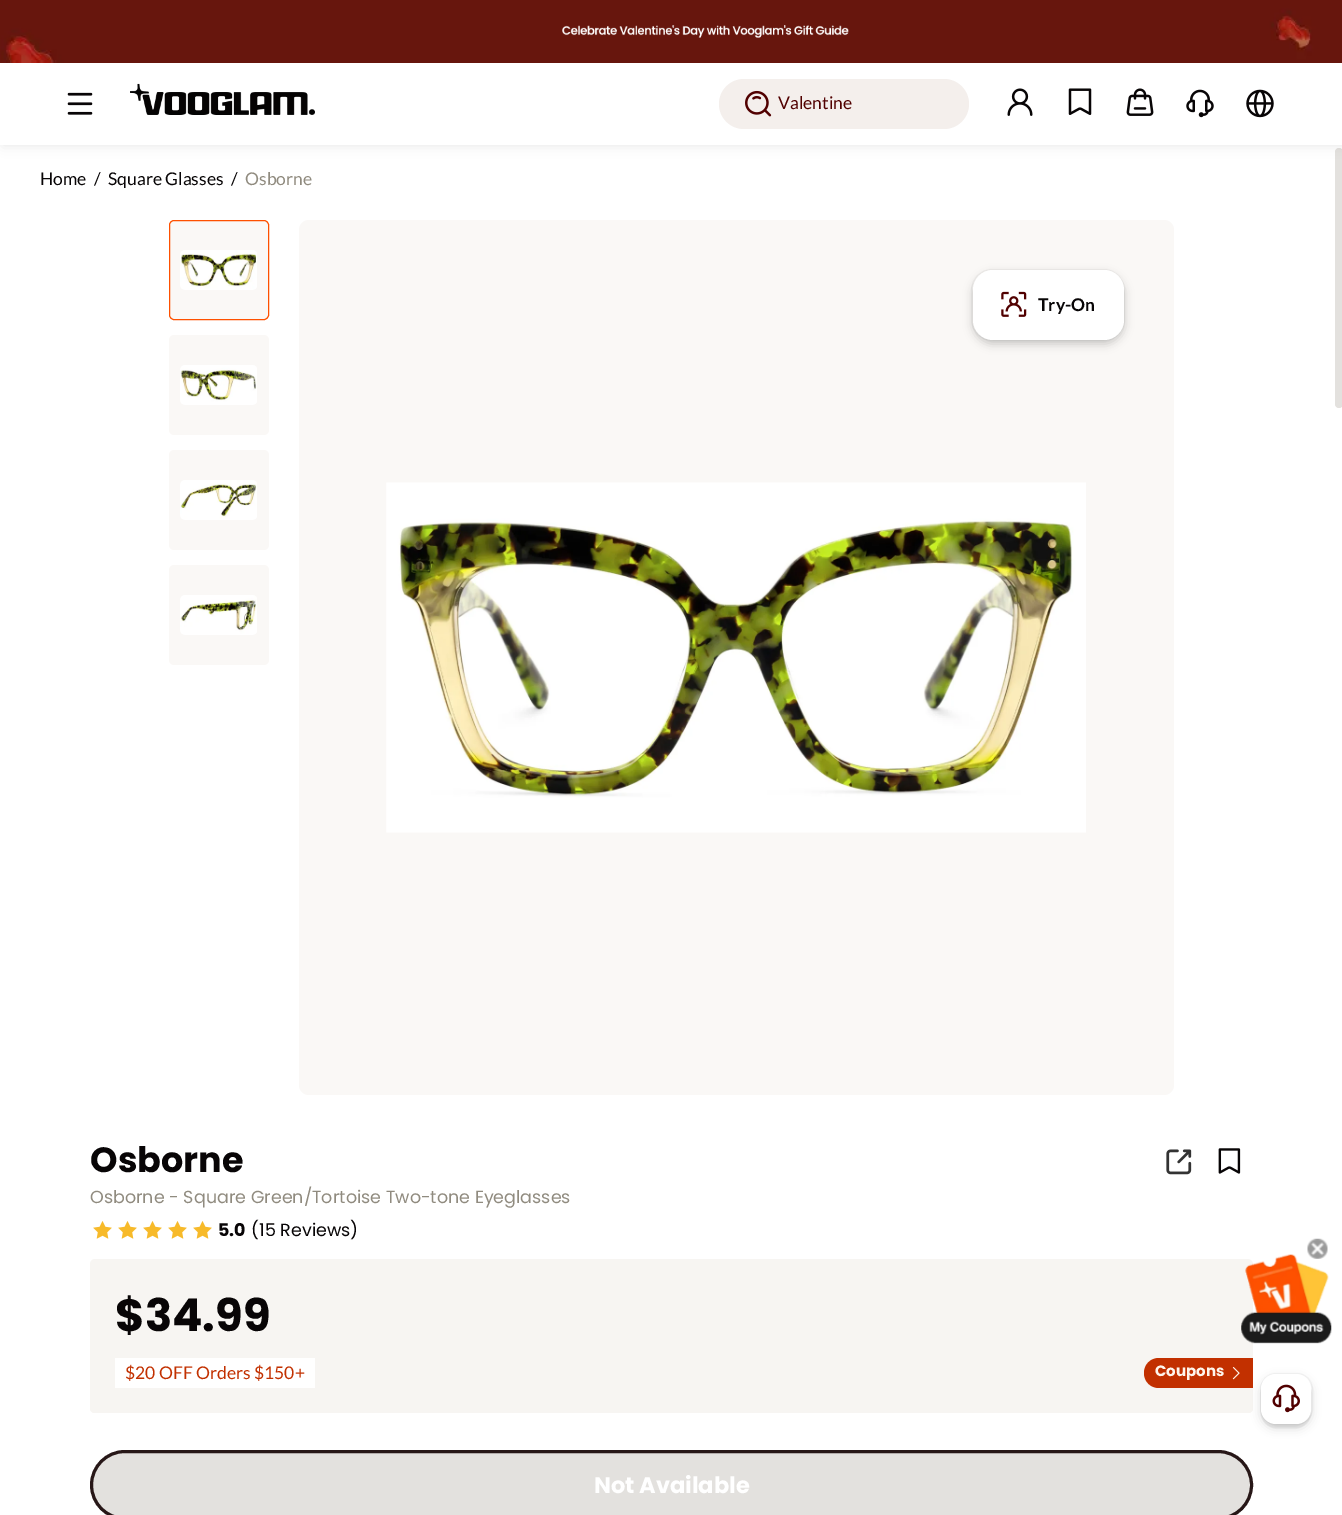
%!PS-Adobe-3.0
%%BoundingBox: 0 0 1342 1515
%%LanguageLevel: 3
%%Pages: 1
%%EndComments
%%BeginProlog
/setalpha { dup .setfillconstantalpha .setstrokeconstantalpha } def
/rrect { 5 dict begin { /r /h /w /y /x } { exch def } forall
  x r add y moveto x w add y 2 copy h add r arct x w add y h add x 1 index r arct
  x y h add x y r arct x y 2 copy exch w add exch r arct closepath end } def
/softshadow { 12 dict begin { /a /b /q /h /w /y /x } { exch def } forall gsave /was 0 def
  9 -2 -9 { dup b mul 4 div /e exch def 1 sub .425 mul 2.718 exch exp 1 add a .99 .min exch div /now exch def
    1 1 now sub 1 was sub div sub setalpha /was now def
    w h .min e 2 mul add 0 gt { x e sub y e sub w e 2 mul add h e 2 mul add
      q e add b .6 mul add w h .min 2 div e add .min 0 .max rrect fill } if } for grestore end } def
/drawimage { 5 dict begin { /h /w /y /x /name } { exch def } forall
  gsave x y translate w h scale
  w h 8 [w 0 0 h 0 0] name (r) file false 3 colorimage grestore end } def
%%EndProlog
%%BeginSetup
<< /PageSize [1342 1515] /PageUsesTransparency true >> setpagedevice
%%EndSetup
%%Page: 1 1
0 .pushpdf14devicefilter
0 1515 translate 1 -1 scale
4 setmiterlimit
1 setgray
0 0 1342 1515 rectfill
0.89 0.882 0.871 setrgbcolor
1335 148 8 260 4 rrect fill
0 setgray
3 0 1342 145 0 6 0.1 softshadow
(images/1.raw) 0 0 1342 63 drawimage
(images/2.raw) 562 25 287 13 drawimage
1 setgray
0 63 1342 82 rectfill
(images/3.raw) 67 92 26 23 drawimage
(images/4.raw) 130 83 185 32 drawimage
0.957 0.937 0.925 setrgbcolor
719 79 250 50 25 rrect fill
(images/5.raw) 745 90 27 27 drawimage
(images/6.raw) 1007 88 26 28 drawimage
(images/7.raw) 1068 88 24 27 drawimage
(images/8.raw) 1126 88 28 28 drawimage
(images/9.raw) 1186 89 28 29 drawimage
(images/10.raw) 1246 89 28 29 drawimage
0.98 0.973 0.965 setrgbcolor
169.5 220.5 99 99 4.5 rrect gsave fill grestore
0.996 0.314 0 setrgbcolor
stroke
(images/11.raw) 180 250 77 40 drawimage
0.98 0.973 0.965 setrgbcolor
169 335 100 100 5 rrect fill
(images/12.raw) 180 365 77 40 drawimage
169 450 100 100 5 rrect fill
(images/13.raw) 180 480 77 40 drawimage
169 565 100 100 5 rrect fill
(images/14.raw) 180 595 77 40 drawimage
299 220 875 875 10 rrect fill
0.941 0.933 0.925 setrgbcolor
971.5 269.5 153 71 20.5 rrect stroke
0 setgray
973 274 151 70 20 5 0.15 softshadow
973 274 151 70 20 4 0.06 softshadow
1 setgray
973 270 151 70 20 rrect fill
(images/15.raw) 1001 291 26 26 drawimage
(images/16.raw) 386 482 700 351 drawimage
(images/17.raw) 93 1221 19 18 drawimage
(images/17.raw) 118 1221 19 18 drawimage
(images/17.raw) 143 1221 19 18 drawimage
(images/17.raw) 168 1221 19 18 drawimage
(images/17.raw) 193 1221 19 18 drawimage
(images/18.raw) 1166 1149 26 26 drawimage
(images/19.raw) 1218 1148 23 26 drawimage
0.969 0.961 0.949 setrgbcolor
90 1259 1163 154 5 rrect fill
newpath 90 1350 moveto 1253 1350 lineto 1253 1408 lineto 1253 1411 1251 1413 1248 1413 curveto 95 1413 lineto 92 1413 90 1411 90 1408 curveto closepath fill
1 setgray
115 1358 200 30 rectfill
0.761 0.188 0 setrgbcolor
newpath 1159 1358 moveto 1253 1358 lineto 1253 1388 lineto 1159 1388 lineto 1150.5 1388 1144 1381.5 1144 1373 curveto 1144 1364.5 1150.5 1358 1159 1358 curveto closepath fill
(images/20.raw) 1232 1367 8 13 drawimage
0.89 0.882 0.871 setrgbcolor
91.5 1451.5 1160 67 33.5 rrect gsave fill grestore
0.153 0.09 0.09 setrgbcolor
3 setlinewidth
stroke
(images/22.raw) 1241 1254 91 90 drawimage
(images/21.raw) 1307 1238 21 21 drawimage
0.961 setgray
1 setlinewidth
1260.5 1373.5 52 51 15.5 rrect stroke
0 setgray
1261 1378 50 50 15 5 0.15 softshadow
1261 1378 50 50 15 0.5 0.06 softshadow
1 setgray
1261 1374 50 50 15 rrect fill
(images/23.raw) 1272 1384 28 29 drawimage
/Lato-Regular [17.5 0 0 -17.5 0 0] selectfont
0.318 0 0 setrgbcolor
778 109 moveto (Valentine) show
0.031 0.02 0.024 setrgbcolor
40 185 moveto (Home) show
94 185 moveto (/) show
108 185 moveto (Square Glasses) show
231 185 moveto (/) show
0.565 0.545 0.498 setrgbcolor
245 185 moveto (Osborne) show
/Lato-Bold [17.5 0 0 -17.5 0 0] selectfont
0.031 0.02 0.024 setrgbcolor
1038 311 moveto (Try-On) show
/Poppins-Bold [35 0 0 -35 0 0] selectfont
90 1172 moveto (Osborne) show
/Poppins-Regular [17.5 0 0 -17.5 0 0] selectfont
0.565 0.545 0.498 setrgbcolor
90 1203 moveto (Osborne - Square Green/Tortoise Two-tone Eyeglasses) show
/Poppins-Bold [17.5 0 0 -17.5 0 0] selectfont
0.031 0.02 0.024 setrgbcolor
218 1236 moveto (5.0) show
/Poppins-Regular [17.5 0 0 -17.5 0 0] selectfont
251 1236 moveto (\(15 Reviews\)) show
/Poppins-Bold [45 0 0 -45 0 0] selectfont
115 1331 moveto ($34.99) show
/Lato-Regular [17.5 0 0 -17.5 0 0] selectfont
0.761 0.188 0 setrgbcolor
125 1379 moveto ($20 OFF Orders $150+) show
/Poppins-Bold [15 0 0 -15 0 0] selectfont
0.996 0.961 0.925 setrgbcolor
1155 1376 moveto (Coupons) show
/Poppins-Bold [22.5 0 0 -22.5 0 0] selectfont
1 setgray
594 1493 moveto (Not Available) show
.poppdf14devicefilter showpage
%%EOF
